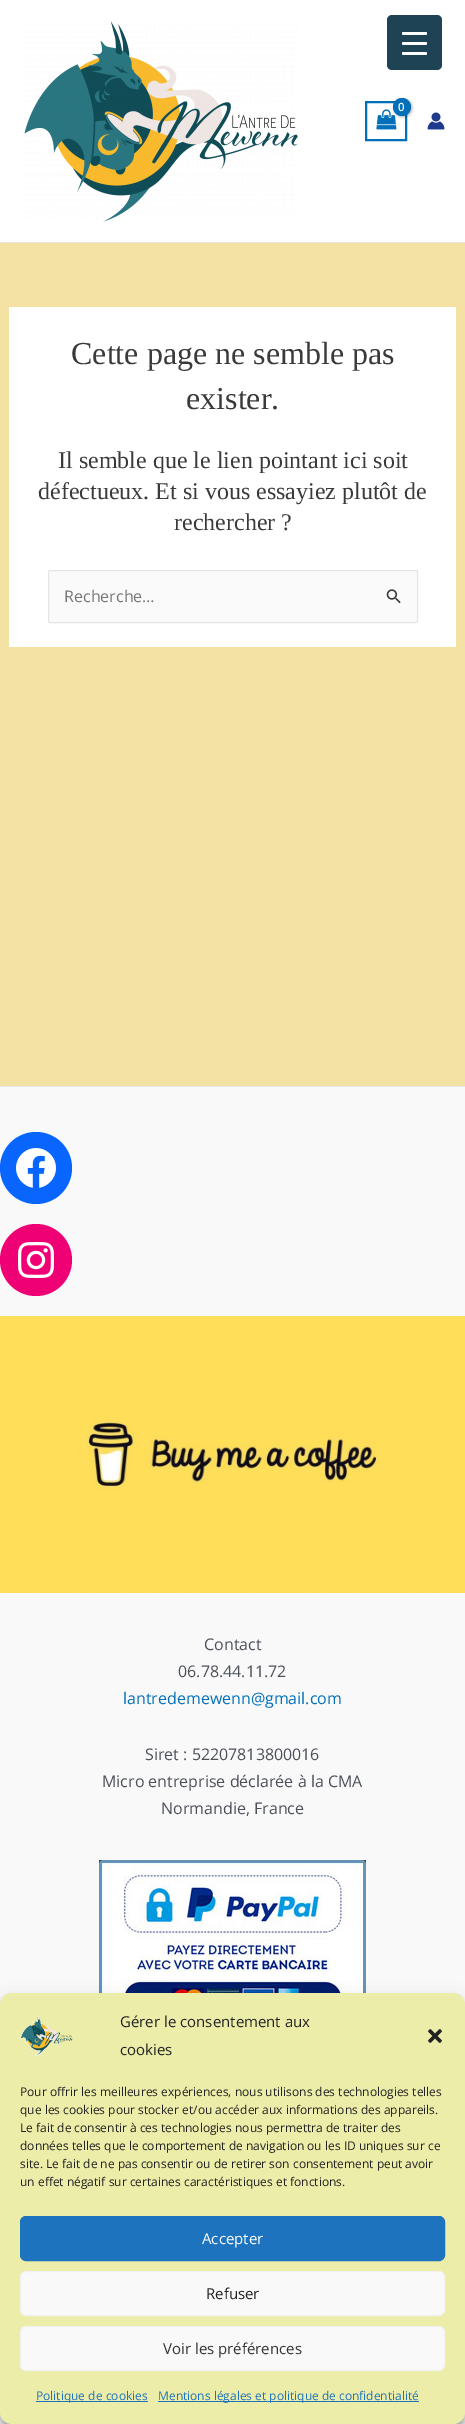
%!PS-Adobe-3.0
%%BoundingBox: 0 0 465 2424
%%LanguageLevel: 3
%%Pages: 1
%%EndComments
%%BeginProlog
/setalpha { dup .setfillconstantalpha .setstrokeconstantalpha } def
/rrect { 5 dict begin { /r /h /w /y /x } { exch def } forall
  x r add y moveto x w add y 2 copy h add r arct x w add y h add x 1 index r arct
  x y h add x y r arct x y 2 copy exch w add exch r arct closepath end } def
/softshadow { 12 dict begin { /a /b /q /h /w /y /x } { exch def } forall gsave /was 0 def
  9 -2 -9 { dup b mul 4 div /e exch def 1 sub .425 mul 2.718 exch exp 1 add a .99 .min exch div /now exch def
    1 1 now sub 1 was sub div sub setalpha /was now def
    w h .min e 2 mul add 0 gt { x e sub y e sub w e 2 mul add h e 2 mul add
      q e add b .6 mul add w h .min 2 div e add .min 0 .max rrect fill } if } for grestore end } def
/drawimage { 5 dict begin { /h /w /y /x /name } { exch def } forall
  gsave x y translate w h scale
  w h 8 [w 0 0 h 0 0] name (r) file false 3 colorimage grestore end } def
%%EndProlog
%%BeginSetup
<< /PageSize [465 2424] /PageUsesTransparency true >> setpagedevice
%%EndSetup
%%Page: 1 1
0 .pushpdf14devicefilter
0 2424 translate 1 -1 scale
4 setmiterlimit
0.953 0.886 0.639 setrgbcolor
0 0 465 2424 rectfill
1 setgray
0 0 465 242 rectfill
0.114 0.263 0.329 setrgbcolor
387 15 55 55 5 rrect fill
1 setgray
402 42 25 3 1.5 rrect fill
402 32 25 3 1.5 rrect fill
402 52 25 3 1.5 rrect fill
0.898 setgray
0 242 465 1 rectfill
(images/1.raw) 24 21 274 201 drawimage
0.004 0.439 0.725 setrgbcolor
2 setlinewidth
366 102 40 38 rectstroke
(images/2.raw) 376 109 21 21 drawimage
0 setgray
394 99 18 18 9 1.5 0.3 softshadow
0.004 0.439 0.725 setrgbcolor
newpath 402 107 9 0 360 arc closepath fill
(images/3.raw) 427 112 18 18 drawimage
1 setgray
9 307 447 340 rectfill
0.98 setgray
48.5 570.5 369 52 1.5 rrect gsave fill grestore
0.898 setgray
1 setlinewidth
stroke
(images/4.raw) 386 589 15 15 drawimage
0.976 setgray
0 1087 465 918 rectfill
0.898 setgray
0 1086 465 1 rectfill
0.031 0.4 1 setrgbcolor
newpath 36 1168 36 0 360 arc closepath fill
(images/5.raw) 16 1148 40 40 drawimage
0.941 0 0.459 setrgbcolor
newpath 36 1260 36 0 360 arc closepath fill
(images/6.raw) 18 1242 36 36 drawimage
(images/7.raw) 0 1316 465 277 drawimage
(images/8.raw) 99 1860 267 133 drawimage
1 setgray
0 2412 465 12 rectfill
0 setgray
0 1999 465 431 12 3 0.23 softshadow
0 2003 465 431 12 10 0.19 softshadow
0.929 0.929 0.667 setrgbcolor
0 1993 465 431 12 rrect fill
(images/9.raw) 20 2016 53 40 drawimage
(images/10.raw) 428 2029 14 14 drawimage
0.118 0.451 0.745 setrgbcolor
20.5 2216.5 424 44 5.5 rrect gsave fill grestore
stroke
0.976 setgray
20.5 2271.5 424 44 5.5 rrect gsave fill grestore
0.949 setgray
stroke
0.976 setgray
20.5 2326.5 424 44 5.5 rrect gsave fill grestore
0.949 setgray
stroke
0.118 0.451 0.745 setrgbcolor
36 2401 112 1 rectfill
158 2401 261 1 rectfill
/OpenSans-Bold [11 0 0 -11 0 0] selectfont
1 setgray
398 111 moveto (0) show
/LiberationSerif-Regular [32 0 0 -32 0 0] selectfont
0.227 setgray
71 364 moveto (Cette page ne semble pas) show
186 409 moveto (exister.) show
/LiberationSerif-Regular [24 0 0 -24 0 0] selectfont
58 468 moveto (Il semble que le lien pointant ici soit) show
38 499 moveto (défectueux. Et si vous essayiez plutôt de) show
174 530 moveto (rechercher ?) show
/OpenSans-Regular [16 0 0 -16 0 0] selectfont
0.459 setgray
64 602 moveto (Recherche…) show
0.294 0.31 0.345 setrgbcolor
204 1650 moveto (Contact) show
178 1677 moveto (06.78.44.11.72) show
0.004 0.439 0.725 setrgbcolor
123 1704 moveto (lantredemewenn@gmail.com) show
0.294 0.31 0.345 setrgbcolor
145 1760 moveto (Siret : 52207813800016) show
102 1787 moveto (Micro entreprise déclarée à la CMA) show
161 1814 moveto (Normandie, France) show
/OpenSans-Regular [15 0 0 -15 0 0] selectfont
0.133 setgray
120 2027 moveto (Gérer le consentement aux) show
120 2055 moveto (cookies) show
/OpenSans-Regular [12 0 0 -12 0 0] selectfont
20 2096 moveto (Pour offrir les meilleures expériences, nous utilisons des technologies telles) show
20 2114 moveto (que les cookies pour stocker et/ou accéder aux informations des appareils.) show
20 2132 moveto (Le fait de consentir à ces technologies nous permettra de traiter des) show
20 2150 moveto (données telles que le comportement de navigation ou les ID uniques sur ce) show
20 2168 moveto (site. Le fait de ne pas consentir ou de retirer son consentement peut avoir) show
20 2186 moveto (un effet négatif sur certaines caractéristiques et fonctions.) show
/OpenSans-Regular [15 0 0 -15 0 0] selectfont
1 setgray
202 2244 moveto (Accepter) show
0.133 setgray
206 2299 moveto (Refuser) show
0.2 setgray
163 2354 moveto (Voir les préférences) show
/OpenSans-Regular [12 0 0 -12 0 0] selectfont
0.118 0.451 0.745 setrgbcolor
36 2400 moveto (Politique de cookies) show
158 2400 moveto (Mentions légales et politique de confidentialité) show
.poppdf14devicefilter showpage
%%EOF
